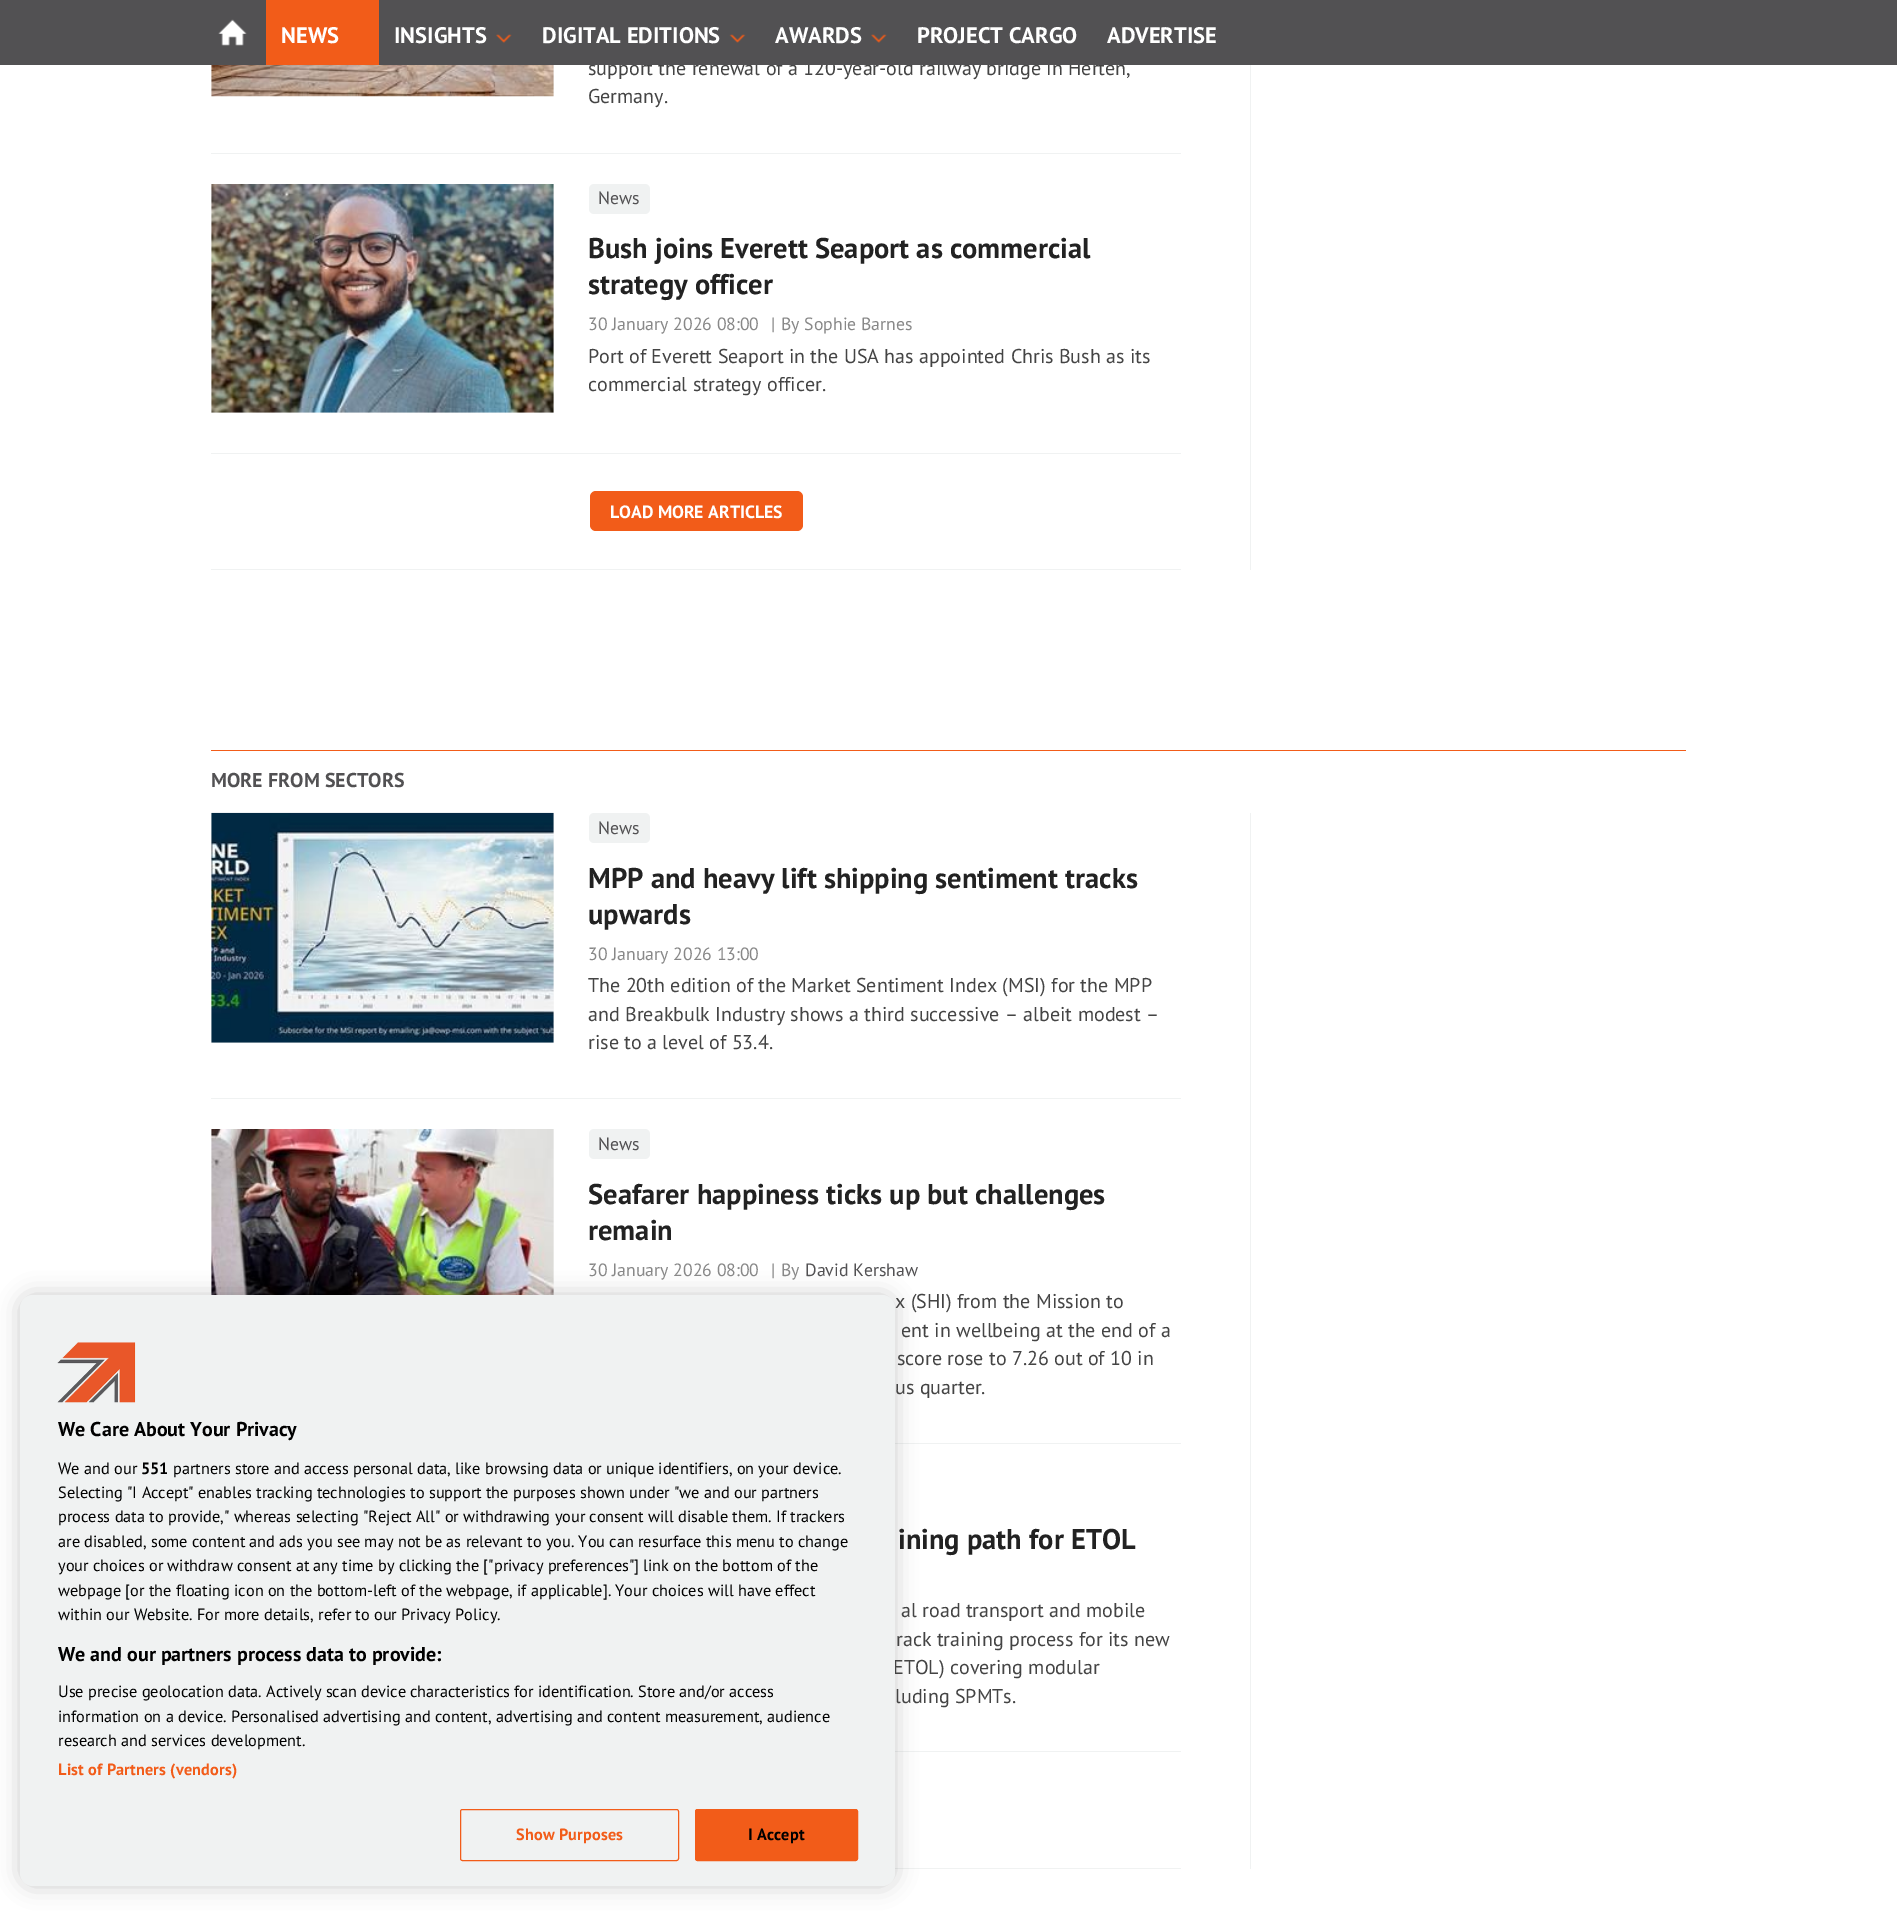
%!PS-Adobe-3.0
%%BoundingBox: 0 0 1897 1926
%%LanguageLevel: 3
%%Pages: 1
%%EndComments
%%BeginProlog
/setalpha { dup .setfillconstantalpha .setstrokeconstantalpha } def
/rrect { 5 dict begin { /r /h /w /y /x } { exch def } forall
  x r add y moveto x w add y 2 copy h add r arct x w add y h add x 1 index r arct
  x y h add x y r arct x y 2 copy exch w add exch r arct closepath end } def
/softshadow { 12 dict begin { /a /b /q /h /w /y /x } { exch def } forall gsave /was 0 def
  9 -2 -9 { dup b mul 4 div /e exch def 1 sub .425 mul 2.718 exch exp 1 add a .99 .min exch div /now exch def
    1 1 now sub 1 was sub div sub setalpha /was now def
    w h .min e 2 mul add 0 gt { x e sub y e sub w e 2 mul add h e 2 mul add
      q e add b .6 mul add w h .min 2 div e add .min 0 .max rrect fill } if } for grestore end } def
/drawimage { 5 dict begin { /h /w /y /x /name } { exch def } forall
  gsave x y translate w h scale
  w h 8 [w 0 0 h 0 0] name (r) file false 3 colorimage grestore end } def
%%EndProlog
%%BeginSetup
<< /PageSize [1897 1926] /PageUsesTransparency true >> setpagedevice
%%EndSetup
%%Page: 1 1
0 .pushpdf14devicefilter
0 1926 translate 1 -1 scale
4 setmiterlimit
1 setgray
0 0 1897 1926 rectfill
0.941 0.949 0.949 setrgbcolor
1250 65 1 505 rectfill
211 153 970 1 rectfill
0.973 setgray
211 65 343 31 rectfill
(images/4.raw) 211 65 343 32 drawimage
0.941 0.949 0.949 setrgbcolor
211 453 970 1 rectfill
0.973 setgray
211 184 343 229 rectfill
(images/5.raw) 211 184 343 229 drawimage
0.941 0.949 0.949 setrgbcolor
589 184 61 30 5 rrect fill
211 569 970 1 rectfill
0.949 0.361 0.098 setrgbcolor
590 491 213 40 6 rrect fill
211 750 1475 1 rectfill
0.941 0.949 0.949 setrgbcolor
1250 813 1 1056 rectfill
211 1098 970 1 rectfill
0.973 setgray
211 813 343 230 rectfill
(images/6.raw) 211 812 343 231 drawimage
0.941 0.949 0.949 setrgbcolor
589 813 61 30 5 rrect fill
895 1443 286 1 rectfill
0.973 setgray
211 1129 343 166 rectfill
(images/7.raw) 211 1129 343 166 drawimage
0.941 0.949 0.949 setrgbcolor
589 1129 61 30 5 rrect fill
895 1751 286 1 rectfill
895 1868 286 1 rectfill
0 setgray
20 1295 875 591 13 11 0.2 softshadow
/PTSans-Regular [20 0 0 -20 0 0] selectfont
0.267 setgray
588 75 moveto (support the renewal of a 120-year-old railway bridge in Herten,) show
0.322 0.318 0.325 setrgbcolor
0 0 1897 65 rectfill
/PTSans-Bold [22.5 0 0 -22.5 0 0] selectfont
1 setgray
1107 43 moveto (ADVERTISE) show
917 43 moveto (PROJECT CARGO) show
(images/2.raw) 871 34 16 9 drawimage
775 43 moveto (AWARDS) show
(images/3.raw) 729 34 17 9 drawimage
542 43 moveto (DIGITAL EDITIONS) show
(images/2.raw) 496 34 16 9 drawimage
394 43 moveto (INSIGHTS) show
0.949 0.361 0.098 setrgbcolor
266 0 113 65 rectfill
1 setgray
281 43 moveto (NEWS) show
(images/1.raw) 218 19 29 27 drawimage
/PTSans-Regular [20 0 0 -20 0 0] selectfont
0.267 setgray
588 103 moveto (Germany.) show
/PTSans-Regular [17.75 0 0 -17.75 0 0] selectfont
0.322 0.318 0.325 setrgbcolor
598 204 moveto (News) show
/PTSans-Bold [28.5 0 0 -28.5 0 0] selectfont
0.133 setgray
588 258 moveto (Bush joins Everett Seaport as commercial) show
588 294 moveto (strategy officer) show
/PTSans-Regular [17.75 0 0 -17.75 0 0] selectfont
0.533 setgray
588 330 moveto (30 January 2026 08:00) show
771 330 moveto (|) show
781 330 moveto (By Sophie Barnes) show
/PTSans-Regular [20 0 0 -20 0 0] selectfont
0.267 setgray
588 363 moveto (Port of Everett Seaport in the USA has appointed Chris Bush as its) show
588 391 moveto (commercial strategy officer.) show
/PTSans-Bold [17.75 0 0 -17.75 0 0] selectfont
1 setgray
610 518 moveto (LOAD MORE ARTICLES) show
/PTSans-Bold [20 0 0 -20 0 0] selectfont
0.322 0.318 0.325 setrgbcolor
211 787 moveto (MORE FROM SECTORS) show
/PTSans-Regular [17.75 0 0 -17.75 0 0] selectfont
598 834 moveto (News) show
/PTSans-Bold [28.5 0 0 -28.5 0 0] selectfont
0.133 setgray
588 888 moveto (MPP and heavy lift shipping sentiment tracks) show
588 924 moveto (upwards) show
/PTSans-Regular [17.75 0 0 -17.75 0 0] selectfont
0.533 setgray
588 960 moveto (30 January 2026 13:00) show
/PTSans-Regular [20 0 0 -20 0 0] selectfont
0.267 setgray
588 992 moveto (The 20th edition of the Market Sentiment Index \(MSI\) for the MPP) show
588 1021 moveto (and Breakbulk Industry shows a third successive – albeit modest –) show
588 1049 moveto (rise to a level of 53.4.) show
/PTSans-Regular [17.75 0 0 -17.75 0 0] selectfont
0.322 0.318 0.325 setrgbcolor
598 1150 moveto (News) show
/PTSans-Bold [28.5 0 0 -28.5 0 0] selectfont
0.133 setgray
588 1204 moveto (Seafarer happiness ticks up but challenges) show
588 1240 moveto (remain) show
/PTSans-Regular [17.75 0 0 -17.75 0 0] selectfont
0.533 setgray
588 1276 moveto (30 January 2026 08:00) show
771 1276 moveto (|) show
781 1276 moveto (By) show
0.322 0.318 0.325 setrgbcolor
805 1276 moveto (David Kershaw) show
/PTSans-Regular [20 0 0 -20 0 0] selectfont
0.267 setgray
895 1308 moveto (x \(SHI\) from the Mission to) show
901 1337 moveto (ent in wellbeing at the end of a) show
897 1365 moveto (score rose to 7.26 out of 10 in) show
895 1394 moveto (us quarter.) show
/PTSans-Bold [28.5 0 0 -28.5 0 0] selectfont
0.133 setgray
898 1549 moveto (ining path for ETOL) show
/PTSans-Regular [20 0 0 -20 0 0] selectfont
0.267 setgray
901 1617 moveto (al road transport and mobile) show
896 1646 moveto (rack training process for its new) show
893 1674 moveto (ETOL\) covering modular) show
895 1703 moveto (luding SPMTs.) show
0.941 0.949 0.949 setrgbcolor
20 1295 875 591 13 rrect fill
/PTSans-Bold [20 0 0 -20 0 0] selectfont
0 setgray
58 1436 moveto (We Care About Your Privacy) show
/PTSans-Regular [16.25 0 0 -16.25 0 0] selectfont
58 1474 moveto (We and our) show
/PTSans-Bold [16.25 0 0 -16.25 0 0] selectfont
141 1474 moveto (551) show
/PTSans-Regular [16.25 0 0 -16.25 0 0] selectfont
173 1474 moveto (partners store and access personal data, like browsing data or unique identifiers, on your device.) show
58 1498 moveto (Selecting "I Accept" enables tracking technologies to support the purposes shown under "we and our partners) show
58 1522 moveto (process data to provide," whereas selecting "Reject All" or withdrawing your consent will disable them. If trackers) show
58 1547 moveto (are disabled, some content and ads you see may not be as relevant to you. You can resurface this menu to change) show
58 1571 moveto (your choices or withdraw consent at any time by clicking the ["privacy preferences"] link on the bottom of the) show
58 1596 moveto (webpage [or the floating icon on the bottom-left of the webpage, if applicable]. Your choices will have effect) show
58 1620 moveto (within our Website. For more details, refer to our Privacy Policy.) show
/PTSans-Bold [20 0 0 -20 0 0] selectfont
58 1661 moveto (We and our partners process data to provide:) show
/PTSans-Regular [16.25 0 0 -16.25 0 0] selectfont
58 1697 moveto (Use precise geolocation data. Actively scan device characteristics for identification. Store and/or access) show
58 1722 moveto (information on a device. Personalised advertising and content, advertising and content measurement, audience) show
58 1746 moveto (research and services development.) show
/PTSans-Bold [16.25 0 0 -16.25 0 0] selectfont
0.949 0.361 0.098 setrgbcolor
58 1775 moveto 0.15 0 (List of Partners \(vendors\)) ashow
(images/8.raw) 57 1342 79 61 drawimage
460.5 1809.5 218 51 2 rrect stroke
516 1840 moveto 0.15 0 (Show Purposes) ashow
695.5 1809.5 162 51 2 rrect gsave fill grestore
stroke
0 setgray
748 1840 moveto 0.15 0 (I Accept) ashow
.poppdf14devicefilter showpage
%%EOF
